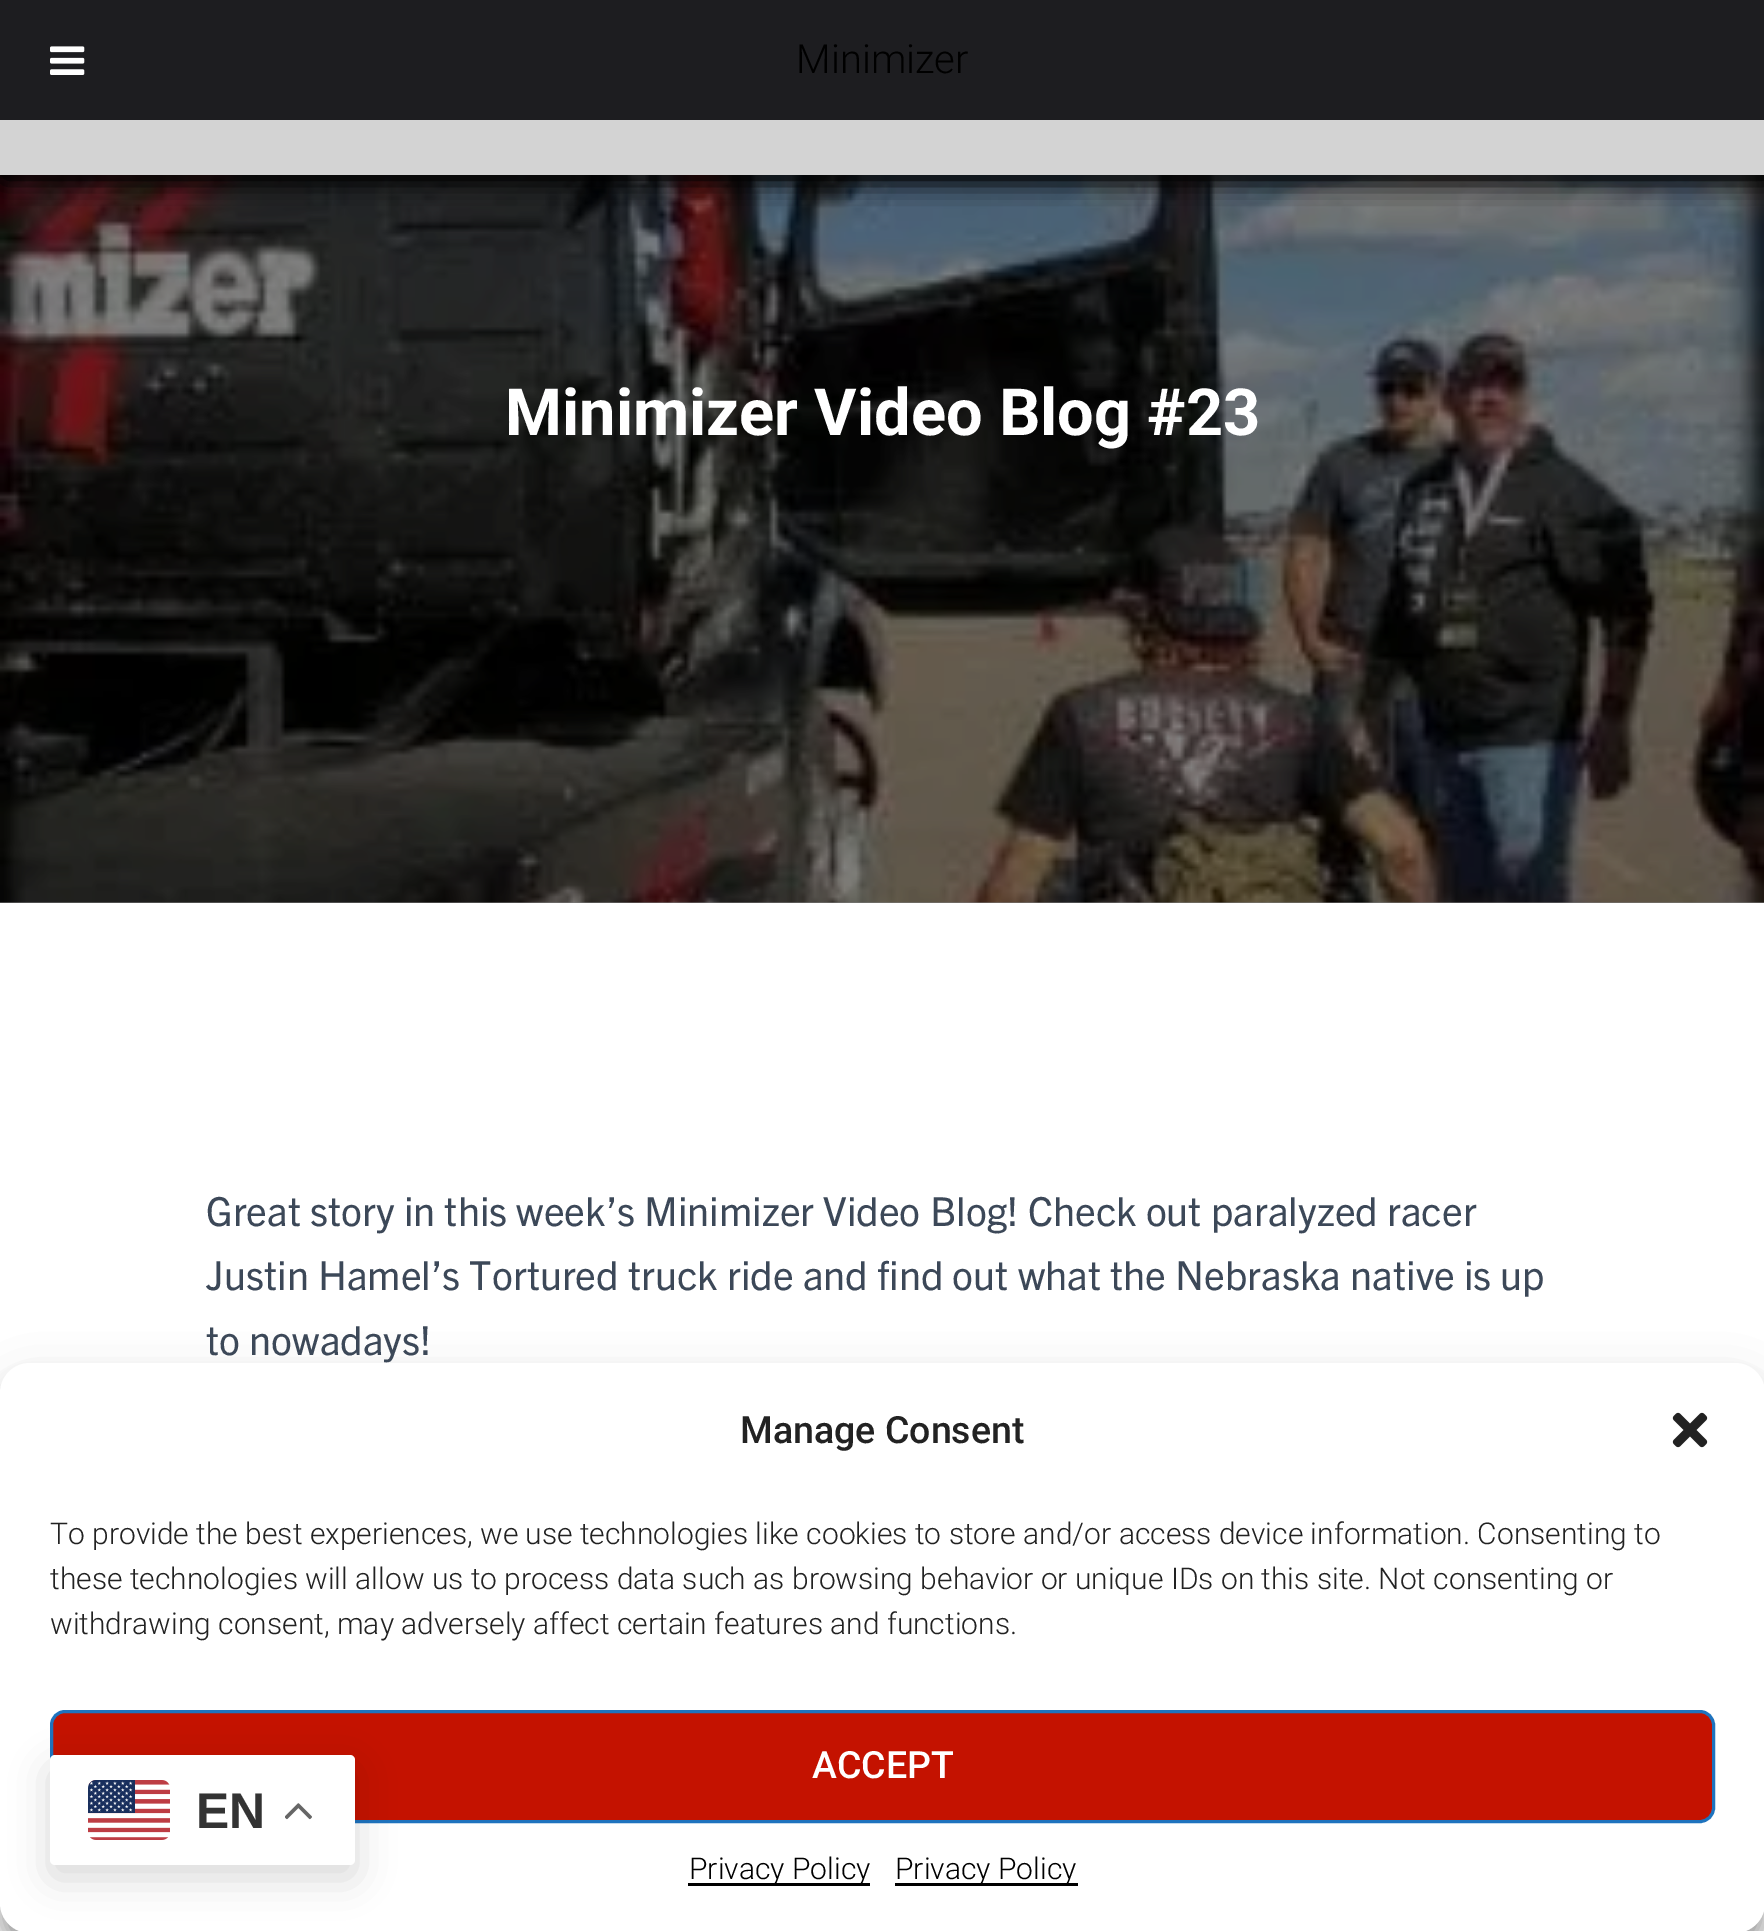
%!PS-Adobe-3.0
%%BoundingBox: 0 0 1764 1931
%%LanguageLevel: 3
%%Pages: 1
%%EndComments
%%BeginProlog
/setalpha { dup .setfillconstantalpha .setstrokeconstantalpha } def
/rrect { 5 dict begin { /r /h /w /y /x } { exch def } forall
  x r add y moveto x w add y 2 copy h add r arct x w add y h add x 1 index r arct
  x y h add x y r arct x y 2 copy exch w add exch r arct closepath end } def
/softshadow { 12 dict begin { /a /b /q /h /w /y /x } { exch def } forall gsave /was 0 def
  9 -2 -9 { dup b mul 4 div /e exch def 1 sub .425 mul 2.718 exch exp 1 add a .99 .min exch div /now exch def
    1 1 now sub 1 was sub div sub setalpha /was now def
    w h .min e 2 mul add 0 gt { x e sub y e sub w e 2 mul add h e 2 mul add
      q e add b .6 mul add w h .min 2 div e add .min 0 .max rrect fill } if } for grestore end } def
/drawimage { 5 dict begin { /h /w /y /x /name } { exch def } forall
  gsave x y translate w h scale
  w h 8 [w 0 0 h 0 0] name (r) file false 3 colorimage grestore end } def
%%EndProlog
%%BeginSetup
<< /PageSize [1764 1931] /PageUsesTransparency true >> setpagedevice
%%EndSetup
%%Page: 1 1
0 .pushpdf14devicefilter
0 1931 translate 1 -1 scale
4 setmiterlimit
1 setgray
0 0 1764 1931 rectfill
0.502 setgray
0 902 1764 1 rectfill
(images/2.raw) 0 175 1764 728 drawimage
0 setgray
3 3 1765 175 0 12.5 1 softshadow
3 3 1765 175 0 12.5 1 softshadow
0.114 0.114 0.125 setrgbcolor
0 0 1764 120 rectfill
(images/1.raw) 50 46 35 29 drawimage
0.827 setgray
0 120 1764 55 rectfill
0 setgray
0 1378 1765 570 30 7.5 0.23 softshadow
0 1388 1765 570 30 25 0.19 softshadow
1 setgray
0 1363 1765 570 30 rrect fill
(images/3.raw) 1672 1412 36 36 drawimage
0.769 0.071 0 setrgbcolor
51.5 1711.5 1662 110 13.5 rrect gsave fill grestore
0.118 0.451 0.745 setrgbcolor
3 setlinewidth
stroke
0 setgray
688 1883 182 3 rectfill
895 1883 183 3 rectfill
50 1768 305 110 5 19 0.15 softshadow
1 setgray
50 1755 305 110 5 rrect fill
(images/4.raw) 88 1780 82 60 drawimage
(images/5.raw) 285 1803 27 17 drawimage
/Roboto-Light [40 0 0 -40 0 0] selectfont
0 setgray
796 73 moveto (Minimizer) show
/Roboto-Bold [65 0 0 -65 0 0] selectfont
1 setgray
505 435 moveto (Minimizer Video Blog #23) show
/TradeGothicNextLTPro-Regular [40 0 0 -40 0 0] selectfont
0.235 0.282 0.345 setrgbcolor
206 1226 moveto (Great story in this week’s Minimizer Video Blog! Check out paralyzed racer) show
206 1290 moveto (Justin Hamel’s Tortured truck ride and find out what the Nebraska native is up) show
206 1355 moveto (to nowadays!) show
/Roboto-Medium [37.5 0 0 -37.5 0 0] selectfont
0.133 setgray
740 1443 moveto (Manage Consent) show
/Roboto-Light [30 0 0 -30 0 0] selectfont
50 1544 moveto (To provide the best experiences, we use technologies like cookies to store and/or access device information. Consenting to) show
50 1589 moveto (these technologies will allow us to process data such as browsing behavior or unique IDs on this site. Not consenting or) show
50 1634 moveto (withdrawing consent, may adversely affect certain features and functions.) show
/Roboto-Medium [37.5 0 0 -37.5 0 0] selectfont
1 setgray
812 1778 moveto (ACCEPT) show
/Roboto-Light [30 0 0 -30 0 0] selectfont
0 setgray
689 1879 moveto (Privacy Policy) show
895 1879 moveto (Privacy Policy) show
/LiberationSans-Bold [50 0 0 -50 0 0] selectfont
0.2 setgray
196 1828 moveto (EN) show
.poppdf14devicefilter showpage
%%EOF
